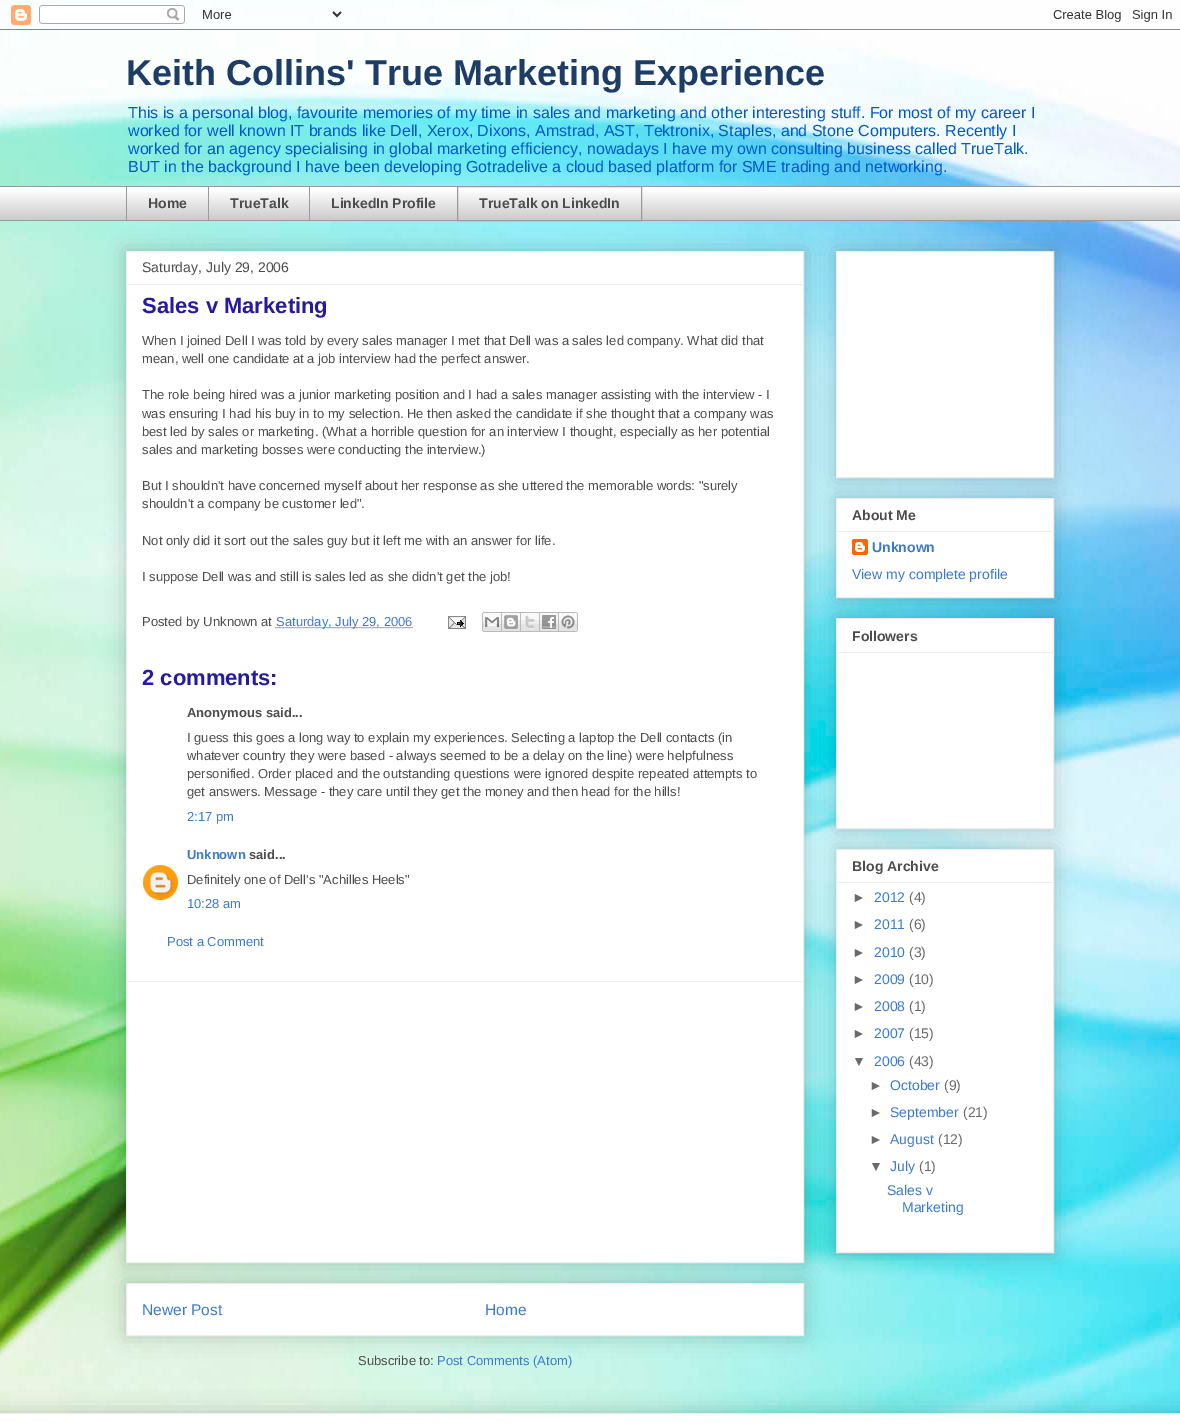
%!PS-Adobe-3.0
%%BoundingBox: 0 0 1180 1427
%%LanguageLevel: 3
%%Pages: 1
%%EndComments
%%BeginProlog
/setalpha { dup .setfillconstantalpha .setstrokeconstantalpha } def
/rrect { 5 dict begin { /r /h /w /y /x } { exch def } forall
  x r add y moveto x w add y 2 copy h add r arct x w add y h add x 1 index r arct
  x y h add x y r arct x y 2 copy exch w add exch r arct closepath end } def
/softshadow { 12 dict begin { /a /b /q /h /w /y /x } { exch def } forall gsave /was 0 def
  9 -2 -9 { dup b mul 4 div /e exch def 1 sub .425 mul 2.718 exch exp 1 add a .99 .min exch div /now exch def
    1 1 now sub 1 was sub div sub setalpha /was now def
    w h .min e 2 mul add 0 gt { x e sub y e sub w e 2 mul add h e 2 mul add
      q e add b .6 mul add w h .min 2 div e add .min 0 .max rrect fill } if } for grestore end } def
/drawimage { 5 dict begin { /h /w /y /x /name } { exch def } forall
  gsave x y translate w h scale
  w h 8 [w 0 0 h 0 0] name (r) file false 3 colorimage grestore end } def
%%EndProlog
%%BeginSetup
<< /PageSize [1180 1427] /PageUsesTransparency true >> setpagedevice
%%EndSetup
%%Page: 1 1
0 .pushpdf14devicefilter
0 1427 translate 1 -1 scale
4 setmiterlimit
1 setgray
0 0 1180 1427 rectfill
(images/1.raw) 0 0 1180 1413 drawimage
(images/2.raw) 0 5 1180 25 drawimage
0 187 1180 33 rectfill
(images/3.raw) 0 192 1180 28 drawimage
0.604 setgray
0 186 1180 1 rectfill
126 186 1 35 rectfill
208 186 1 35 rectfill
309 186 1 35 rectfill
457.5 186.5 184 34 rectstroke
0 220 1180 1 rectfill
0 setgray
126 1283 678 53 0 10 0.2 softshadow
1 setgray
newpath 126.5 1283.5 moveto 803.5 1283.5 lineto 803.5 1335.5 lineto 126.5 1335.5 lineto closepath gsave fill grestore
0.933 setgray
stroke
0 setgray
126 251 678 1012 0 10 0.2 softshadow
1 setgray
newpath 126.5 251.5 moveto 803.5 251.5 lineto 803.5 1262.5 lineto 126.5 1262.5 lineto closepath gsave fill grestore
0.933 setgray
stroke
127 284 676 1 rectfill
0.231 0.478 0.808 setrgbcolor
[1 1] 0 setdash
newpath 275.5 627.5 moveto 412.5 627.5 lineto stroke
(images/4.raw) 448 616 18 13 drawimage
(images/5.raw) 482 612 20 20 drawimage
(images/6.raw) 502 612 19 20 drawimage
(images/7.raw) 521 612 19 20 drawimage
(images/8.raw) 540 612 19 20 drawimage
(images/9.raw) 559 612 19 20 drawimage
(images/10.raw) 143 865 35 35 drawimage
0.933 setgray
127 981 676 1 rectfill
0 setgray
836 251 218 227 0 10 0.2 softshadow
1 setgray
newpath 836.5 251.5 moveto 1053.5 251.5 lineto 1053.5 477.5 lineto 836.5 477.5 lineto closepath gsave fill grestore
0.933 setgray
[] 0 setdash
stroke
0 setgray
836 498 218 100 0 10 0.2 softshadow
1 setgray
newpath 836.5 498.5 moveto 1053.5 498.5 lineto 1053.5 597.5 lineto 836.5 597.5 lineto closepath gsave fill grestore
0.933 setgray
stroke
837 531 216 1 rectfill
(images/11.raw) 852 539 16 16 drawimage
0 setgray
836 618 218 211 0 10 0.2 softshadow
1 setgray
newpath 836.5 618.5 moveto 1053.5 618.5 lineto 1053.5 828.5 lineto 836.5 828.5 lineto closepath gsave fill grestore
0.933 setgray
stroke
837 652 216 1 rectfill
0 setgray
836 849 218 404 0 10 0.2 softshadow
1 setgray
newpath 836.5 849.5 moveto 1053.5 849.5 lineto 1053.5 1252.5 lineto 836.5 1252.5 lineto closepath gsave fill grestore
0.933 setgray
stroke
837 882 216 1 rectfill
0 setgray
-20 1413 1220 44 0 10 0.2 softshadow
1 setgray
0 1414 1180 13 rectfill
0.933 setgray
0 1413 1180 1 rectfill
/LiberationSans-Bold [36 0 0 -36 0 0] selectfont
0.114 0.239 0.404 setrgbcolor
126 85 moveto (Keith Collins' True Marketing Experience) show
/LiberationSans-Regular [16 0 0 -16 0 0] selectfont
0 0.345 0.808 setrgbcolor
128 118 moveto (This is a personal blog, favourite memories of my time in sales and marketing and other interesting stuff. For most of my career I) show
128 136 moveto (worked for well known IT brands like Dell, Xerox, Dixons, Amstrad, AST, Tektronix, Staples, and Stone Computers. Recently I) show
128 154 moveto (worked for an agency specialising in global marketing efficiency, nowadays I have my own consulting business called TrueTalk.) show
128 172 moveto (BUT in the background I have been developing Gotradelive a cloud based platform for SME trading and networking.) show
/LiberationSans-Bold [14 0 0 -14 0 0] selectfont
0.298 setgray
148 208 moveto (Home) show
230 208 moveto (TrueTalk) show
331 208 moveto (LinkedIn Profile) show
479 208 moveto (TrueTalk on LinkedIn) show
/LiberationSans-Regular [14 0 0 -14 0 0] selectfont
142 272 moveto (Saturday, July 29, 2006) show
/LiberationSans-Bold [22 0 0 -22 0 0] selectfont
0.149 0.106 0.627 setrgbcolor
142 313 moveto (Sales v Marketing) show
/LiberationSans-Regular [13 0 0 -13 0 0] selectfont
0.298 setgray
142 345 moveto (When I joined Dell I was told by every sales manager I met that Dell was a sales led company. What did that) show
142 363 moveto (mean, well one candidate at a job interview had the perfect answer.) show
142 399 moveto (The role being hired was a junior marketing position and I had a sales manager assisting with the interview - I) show
142 418 moveto (was ensuring I had his buy in to my selection. He then asked the candidate if she thought that a company was) show
142 436 moveto (best led by sales or marketing. \(What a horrible question for an interview I thought, especially as her potential) show
142 454 moveto (sales and marketing bosses were conducting the interview.\)) show
142 490 moveto (But I shouldn't have concerned myself about her response as she uttered the memorable words: "surely) show
142 508 moveto (shouldn't a company be customer led".) show
142 545 moveto (Not only did it sort out the sales guy but it left me with an answer for life.) show
142 581 moveto (I suppose Dell was and still is sales led as she didn't get the job!) show
142 626 moveto (Posted by Unknown at) show
0.231 0.478 0.808 setrgbcolor
276 626 moveto (Saturday, July 29, 2006) show
/LiberationSans-Bold [22 0 0 -22 0 0] selectfont
0.149 0.106 0.627 setrgbcolor
142 685 moveto (2 comments:) show
/LiberationSans-Bold [13 0 0 -13 0 0] selectfont
0.298 setgray
187 717 moveto (Anonymous said...) show
/LiberationSans-Regular [13 0 0 -13 0 0] selectfont
187 742 moveto (I guess this goes a long way to explain my experiences. Selecting a laptop the Dell contacts \(in) show
187 760 moveto (whatever country they were based - always seemed to be a delay on the line\) were helpfulness) show
187 778 moveto (personified. Order placed and the outstanding questions were ignored despite repeated attempts to) show
187 796 moveto (get answers. Message - they care until they get the money and then head for the hills!) show
0.231 0.478 0.808 setrgbcolor
187 821 moveto (2:17 pm) show
/LiberationSans-Bold [13 0 0 -13 0 0] selectfont
187 859 moveto (Unknown) show
0.298 setgray
249 859 moveto (said...) show
/LiberationSans-Regular [13 0 0 -13 0 0] selectfont
187 884 moveto (Definitely one of Dell's "Achilles Heels") show
0.231 0.478 0.808 setrgbcolor
187 908 moveto (10:28 am) show
167 946 moveto (Post a Comment) show
/LiberationSans-Regular [15.5 0 0 -15.5 0 0] selectfont
142 1315 moveto (Newer Post) show
485 1315 moveto (Home) show
/LiberationSans-Regular [13 0 0 -13 0 0] selectfont
0.298 setgray
358 1365 moveto (Subscribe to:) show
0.231 0.478 0.808 setrgbcolor
437 1365 moveto (Post Comments \(Atom\)) show
/LiberationSans-Bold [14 0 0 -14 0 0] selectfont
0.298 setgray
852 520 moveto (About Me) show
0.231 0.478 0.808 setrgbcolor
872 552 moveto (Unknown) show
/LiberationSans-Regular [14 0 0 -14 0 0] selectfont
852 579 moveto (View my complete profile) show
/LiberationSans-Bold [14 0 0 -14 0 0] selectfont
0.298 setgray
852 641 moveto (Followers) show
852 871 moveto (Blog Archive) show
/LiberationSans-Regular [14 0 0 -14 0 0] selectfont
0.416 setgray
852 902 moveto (►) show
0.231 0.478 0.808 setrgbcolor
874 902 moveto (2012) show
0.416 setgray
909 902 moveto (\(4\)) show
852 929 moveto (►) show
0.231 0.478 0.808 setrgbcolor
874 929 moveto (2011) show
0.416 setgray
909 929 moveto (\(6\)) show
852 957 moveto (►) show
0.231 0.478 0.808 setrgbcolor
874 957 moveto (2010) show
0.416 setgray
909 957 moveto (\(3\)) show
852 984 moveto (►) show
0.231 0.478 0.808 setrgbcolor
874 984 moveto (2009) show
0.416 setgray
909 984 moveto (\(10\)) show
852 1011 moveto (►) show
0.231 0.478 0.808 setrgbcolor
874 1011 moveto (2008) show
0.416 setgray
909 1011 moveto (\(1\)) show
852 1038 moveto (►) show
0.231 0.478 0.808 setrgbcolor
874 1038 moveto (2007) show
0.416 setgray
909 1038 moveto (\(15\)) show
852 1066 moveto (▼) show
0.231 0.478 0.808 setrgbcolor
874 1066 moveto (2006) show
0.416 setgray
909 1066 moveto (\(43\)) show
869 1090 moveto (►) show
0.231 0.478 0.808 setrgbcolor
890 1090 moveto (October) show
0.416 setgray
944 1090 moveto (\(9\)) show
869 1117 moveto (►) show
0.231 0.478 0.808 setrgbcolor
890 1117 moveto (September) show
0.416 setgray
963 1117 moveto (\(21\)) show
869 1144 moveto (►) show
0.231 0.478 0.808 setrgbcolor
890 1144 moveto (August) show
0.416 setgray
938 1144 moveto (\(12\)) show
869 1171 moveto (▼) show
0.231 0.478 0.808 setrgbcolor
890 1171 moveto (July) show
0.416 setgray
919 1171 moveto (\(1\)) show
0.231 0.478 0.808 setrgbcolor
887 1195 moveto (Sales v) show
902 1212 moveto (Marketing) show
.poppdf14devicefilter showpage
%%EOF
